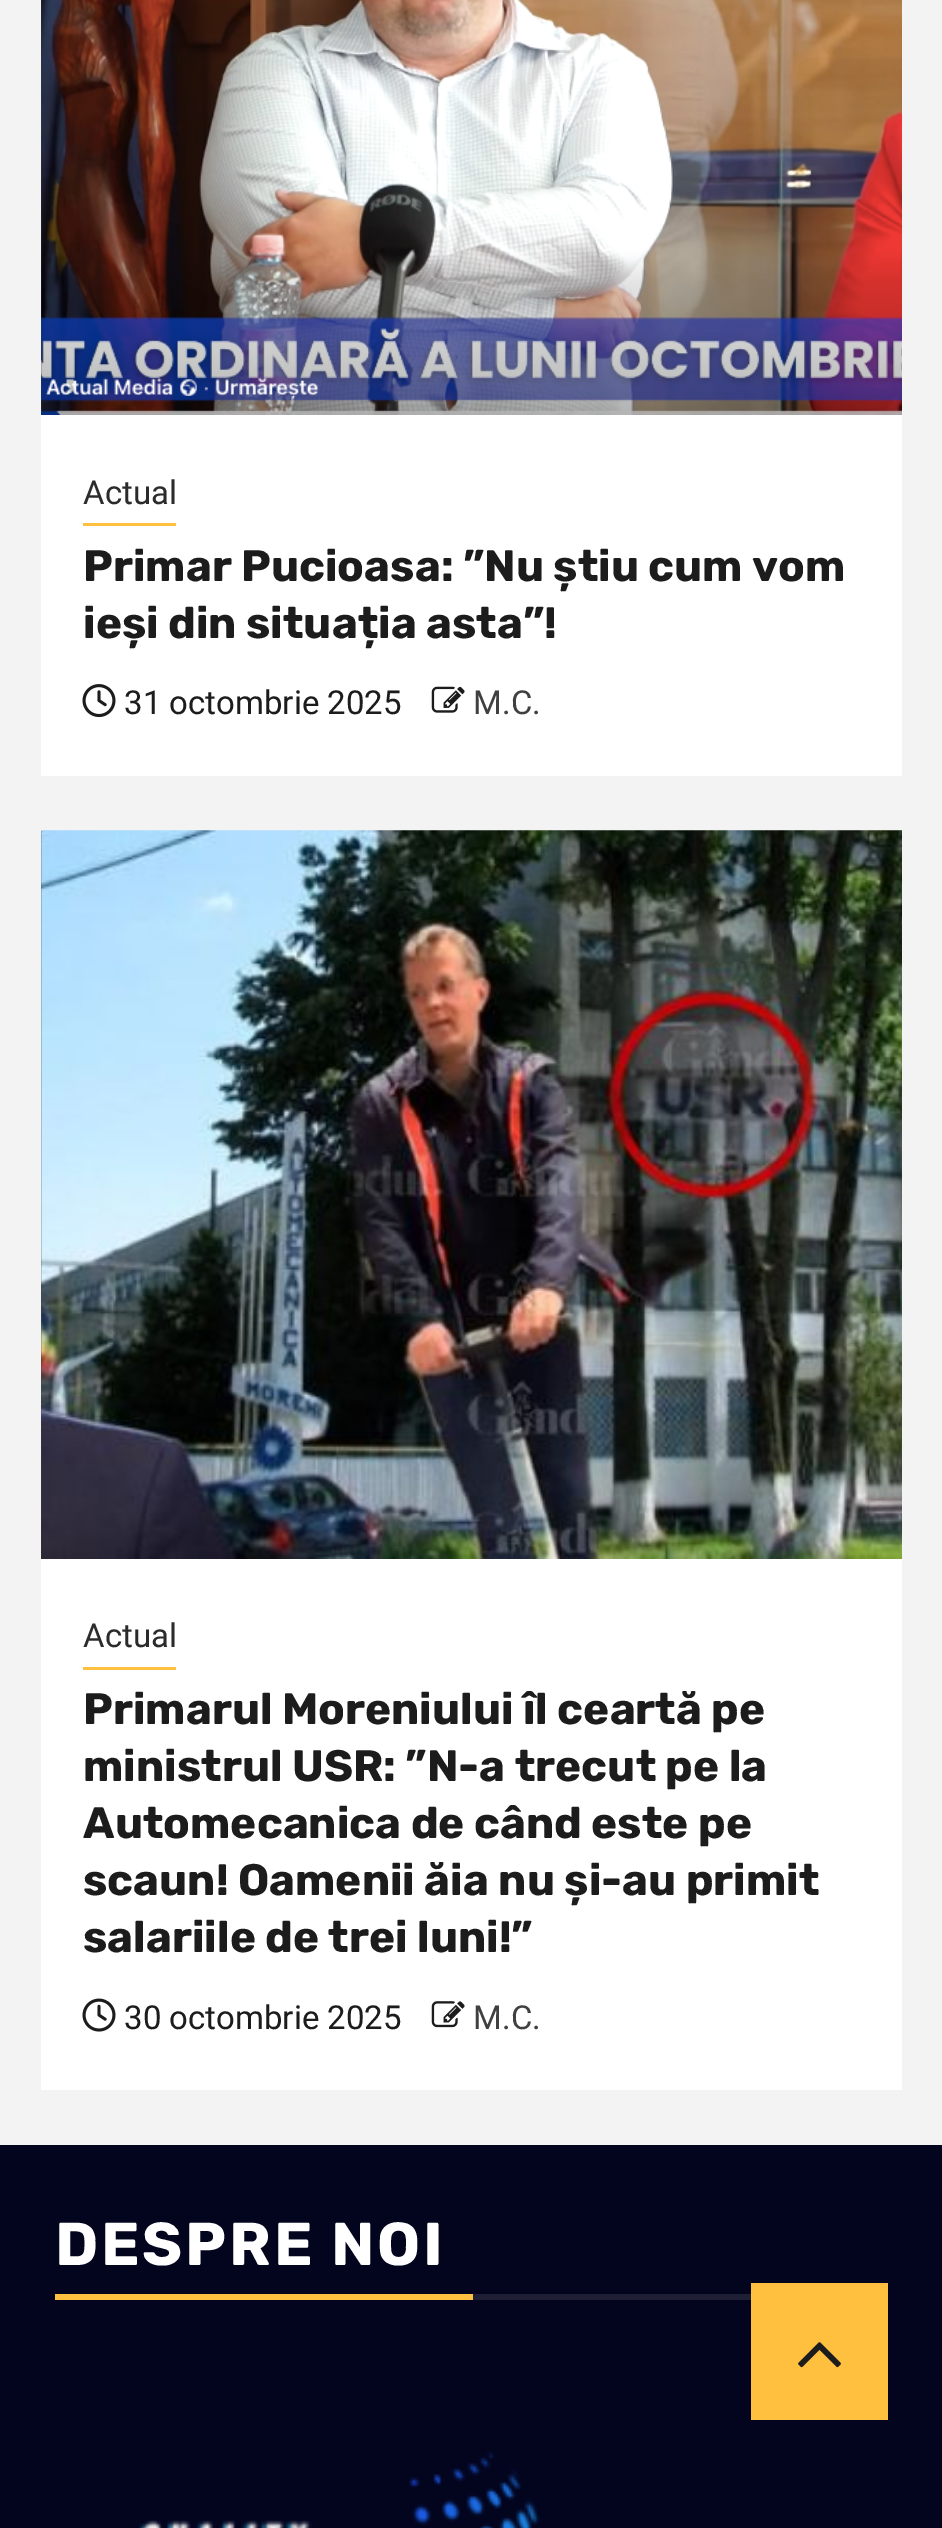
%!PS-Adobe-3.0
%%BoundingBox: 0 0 942 2528
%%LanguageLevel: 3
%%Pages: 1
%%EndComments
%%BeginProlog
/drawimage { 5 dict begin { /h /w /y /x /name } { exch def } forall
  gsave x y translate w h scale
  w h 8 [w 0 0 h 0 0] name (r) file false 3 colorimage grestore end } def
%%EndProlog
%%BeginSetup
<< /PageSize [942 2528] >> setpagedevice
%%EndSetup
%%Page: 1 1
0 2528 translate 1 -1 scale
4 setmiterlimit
0.953 setgray
0 0 942 2528 rectfill
1 setgray
41 0 861 776 rectfill
(images/1.raw) 41 0 861 415 drawimage
1 0.749 0.247 setrgbcolor
83 523 93 3 rectfill
(images/2.raw) 82 684 34 34 drawimage
(images/3.raw) 431 686 34 27 drawimage
1 setgray
41 831 861 1259 rectfill
(images/4.raw) 41 830 861 729 drawimage
1 0.749 0.247 setrgbcolor
83 1667 93 3 rectfill
(images/5.raw) 82 1998 34 34 drawimage
(images/6.raw) 431 2001 34 27 drawimage
0.012 0.02 0.122 setrgbcolor
0 2145 942 383 rectfill
1 0.749 0.247 setrgbcolor
55 2294 418 6 rectfill
0.118 0.122 0.204 setrgbcolor
473 2294 278 6 rectfill
(images/7.raw) 139 2451 401 77 drawimage
1 0.749 0.247 setrgbcolor
751 2283 137 137 rectfill
(images/8.raw) 798 2342 43 26 drawimage
/Roboto-Regular [33 0 0 -33 0 0] selectfont
0.169 setgray
83 504 moveto (Actual) show
/Rubik-Bold [44 0 0 -44 0 0] selectfont
0.11 setgray
83 581 moveto (Primar Pucioasa: ”Nu știu cum vom) show
83 638 moveto (ieși din situația asta”!) show
/Roboto-Regular [33 0 0 -33 0 0] selectfont
124 714 moveto (31 octombrie 2025) show
0.251 setgray
473 714 moveto (M.C.) show
0.169 setgray
83 1647 moveto (Actual) show
/Rubik-Bold [44 0 0 -44 0 0] selectfont
0.11 setgray
83 1724 moveto (Primarul Moreniului îl ceartă pe) show
83 1781 moveto (ministrul USR: ”N-a trecut pe la) show
83 1838 moveto (Automecanica de când este pe) show
83 1895 moveto (scaun! Oamenii ăia nu și-au primit) show
83 1952 moveto (salariile de trei luni!”) show
/Roboto-Regular [33 0 0 -33 0 0] selectfont
124 2029 moveto (30 octombrie 2025) show
0.251 setgray
473 2029 moveto (M.C.) show
/Rubik-Bold [60.5 0 0 -60.5 0 0] selectfont
1 setgray
55 2265 moveto 2.75 0 (DESPRE NOI) ashow
showpage
%%EOF
